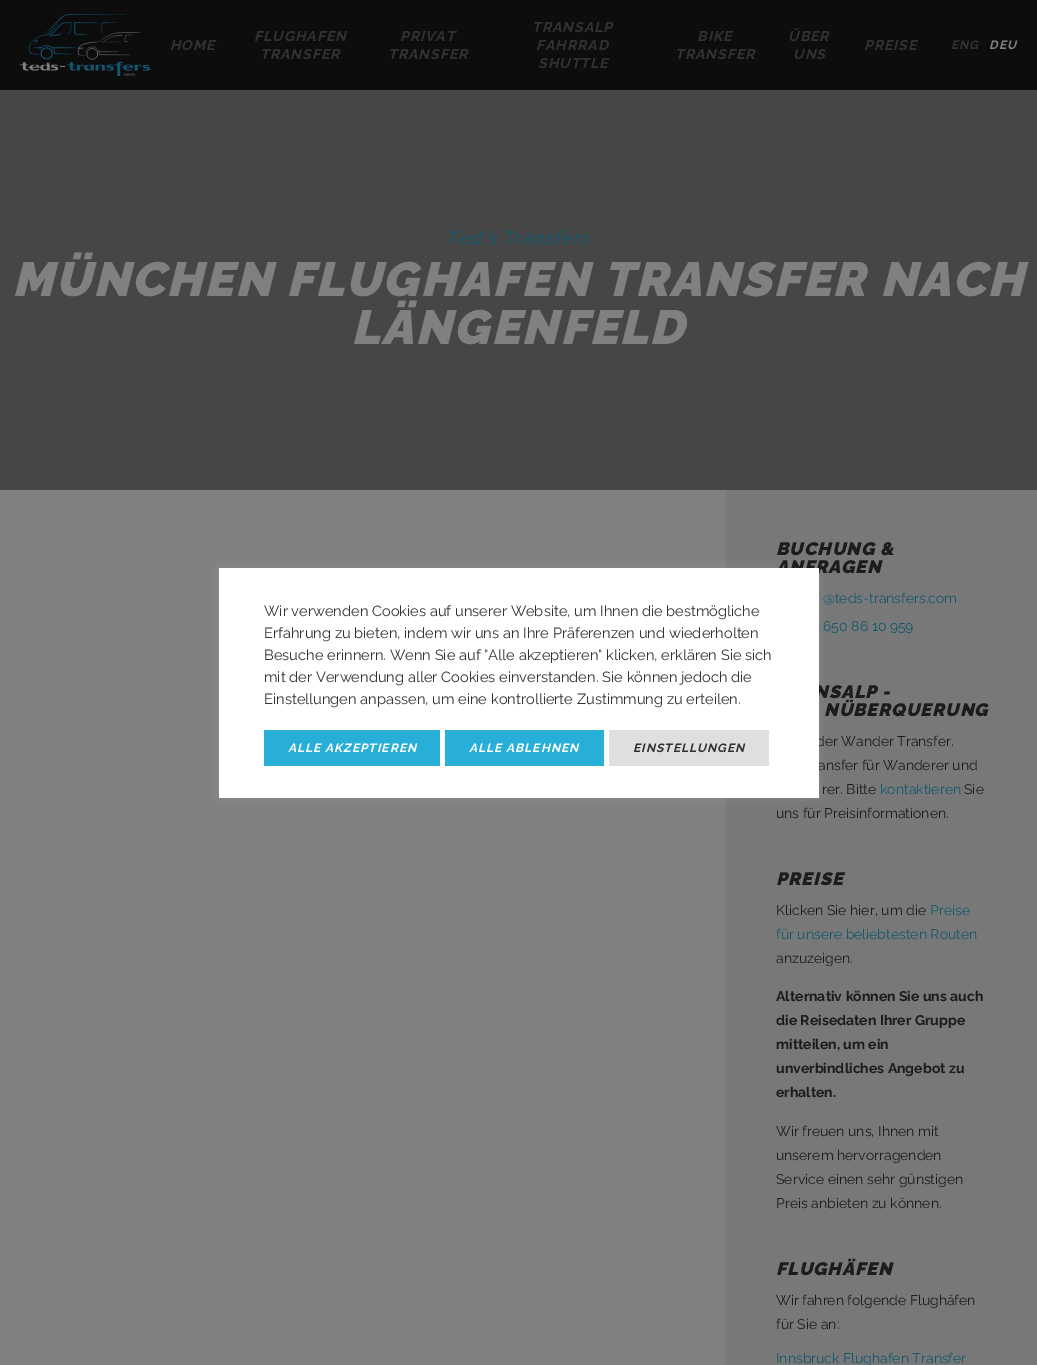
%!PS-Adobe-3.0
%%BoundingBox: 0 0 1037 1365
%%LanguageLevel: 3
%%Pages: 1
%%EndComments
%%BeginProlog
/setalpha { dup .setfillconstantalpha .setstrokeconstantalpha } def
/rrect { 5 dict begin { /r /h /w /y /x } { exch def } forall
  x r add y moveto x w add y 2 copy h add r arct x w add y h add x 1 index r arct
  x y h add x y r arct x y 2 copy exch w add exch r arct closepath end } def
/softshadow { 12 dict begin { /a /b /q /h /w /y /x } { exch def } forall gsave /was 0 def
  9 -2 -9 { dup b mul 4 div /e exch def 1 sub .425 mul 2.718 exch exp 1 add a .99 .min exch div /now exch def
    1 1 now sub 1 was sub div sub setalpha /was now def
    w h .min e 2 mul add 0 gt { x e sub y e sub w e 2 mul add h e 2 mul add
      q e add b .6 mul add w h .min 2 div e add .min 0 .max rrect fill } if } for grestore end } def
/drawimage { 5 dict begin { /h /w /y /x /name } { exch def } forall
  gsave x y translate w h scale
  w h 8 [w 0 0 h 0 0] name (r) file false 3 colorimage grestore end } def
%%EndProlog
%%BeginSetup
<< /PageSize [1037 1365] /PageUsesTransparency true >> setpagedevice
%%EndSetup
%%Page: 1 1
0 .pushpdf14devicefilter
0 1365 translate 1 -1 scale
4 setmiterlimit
0.502 setgray
0 0 1037 1365 rectfill
0.051 setgray
0 0 1037 90 rectfill
(images/1.raw) 20 14 130 62 drawimage
0.275 setgray
0 90 1037 400 rectfill
0.471 setgray
726 490 311 875 rectfill
0.675 0.671 0.671 setrgbcolor
219 567 600 230 0 5 0.3 softshadow
/Raleway-BoldItalic [14 0 0 -14 0 0] selectfont
0.196 setgray
170 50 moveto 1 0 (HOME) ashow
254 41 moveto 1 0 (FLUGHAFEN) ashow
260 59 moveto 1 0 (TRANSFER) ashow
400 41 moveto 1 0 (PRIVAT) ashow
388 59 moveto 1 0 (TRANSFER) ashow
532 32 moveto 1 0 (TRANSALP) ashow
536 50 moveto 1 0 (FAHRRAD) ashow
538 68 moveto 1 0 (SHUTTLE) ashow
697 41 moveto 1 0 (BIKE) ashow
675 59 moveto 1 0 (TRANSFER) ashow
788 41 moveto 1 0 (ÜBER) ashow
793 59 moveto 1 0 (UNS) ashow
864 50 moveto 1 0 (PREISE) ashow
/Raleway-BoldItalic [12 0 0 -12 0 0] selectfont
951 49 moveto 1 0 (ENG) ashow
0.502 setgray
989 49 moveto 1 0 (DEU) ashow
/Raleway-MediumItalic [18 0 0 -18 0 0] selectfont
0.078 0.345 0.424 setrgbcolor
446 244 moveto 1 0 (Ted's Transfers) ashow
/Raleway-BlackItalic [48 0 0 -48 0 0] selectfont
0.502 setgray
12 296 moveto 2 0 (MÜNCHEN FLUGHAFEN TRANSFER NACH) ashow
351 344 moveto 2 0 (LÄNGENFELD) ashow
/Raleway-BlackItalic [18 0 0 -18 0 0] selectfont
0.11 setgray
776 555 moveto 1 0 (BUCHUNG &) ashow
776 573 moveto 1 0 (ANFRAGEN) ashow
/Raleway-Regular [14 0 0 -14 0 0] selectfont
0.078 0.345 0.424 setrgbcolor
823 603 moveto (@teds-transfers.com) show
823 631 moveto (650 86 10 959) show
/Raleway-BlackItalic [18 0 0 -18 0 0] selectfont
0.11 setgray
814 698 moveto 1 0 (NSALP -) ashow
824 716 moveto 1 0 (NÜBERQUERUNG) ashow
/Raleway-Regular [14 0 0 -14 0 0] selectfont
816 746 moveto (der Wander Transfer.) show
818 770 moveto (ansfer für Wanderer und) show
822 794 moveto (rer. Bitte) show
0.078 0.345 0.424 setrgbcolor
880 794 moveto (kontaktieren) show
0.11 setgray
964 794 moveto (Sie) show
776 818 moveto (uns für Preisinformationen.) show
/Raleway-BlackItalic [18 0 0 -18 0 0] selectfont
776 885 moveto 1 0 (PREISE) ashow
/Raleway-Regular [14 0 0 -14 0 0] selectfont
776 915 moveto (Klicken Sie hier, um die) show
0.078 0.345 0.424 setrgbcolor
930 915 moveto (Preise) show
776 939 moveto (für unsere beliebtesten Routen) show
0.11 setgray
776 963 moveto (anzuzeigen.) show
/Raleway-Bold [14 0 0 -14 0 0] selectfont
776 1001 moveto (Alternativ können Sie uns auch) show
776 1025 moveto (die Reisedaten Ihrer Gruppe) show
776 1049 moveto (mitteilen, um ein) show
776 1073 moveto (unverbindliches Angebot zu) show
776 1097 moveto (erhalten.) show
/Raleway-Regular [14 0 0 -14 0 0] selectfont
776 1136 moveto (Wir freuen uns, Ihnen mit) show
776 1160 moveto (unserem hervorragenden) show
776 1184 moveto (Service einen sehr günstigen) show
776 1208 moveto (Preis anbieten zu können.) show
/Raleway-BlackItalic [18 0 0 -18 0 0] selectfont
776 1275 moveto 1 0 (FLUGHÄFEN) ashow
/Raleway-Regular [14 0 0 -14 0 0] selectfont
776 1305 moveto (Wir fahren folgende Flughäfen) show
776 1329 moveto (für Sie an:) show
0.078 0.345 0.424 setrgbcolor
776 1363 moveto (Innsbruck Flughafen Transfer) show
1 setgray
219 568 600 230 rectfill
/Raleway-Regular [14.65 0 0 -14.65 0 0] selectfont
0.196 setgray
264 616 moveto (Wir verwenden Cookies auf unserer Website, um Ihnen die bestmögliche) show
264 638 moveto (Erfahrung zu bieten, indem wir uns an Ihre Präferenzen und wiederholten) show
264 660 moveto (Besuche erinnern. Wenn Sie auf "Alle akzeptieren" klicken, erklären Sie sich) show
264 682 moveto (mit der Verwendung aller Cookies einverstanden. Sie können jedoch die) show
264 704 moveto (Einstellungen anpassen, um eine kontrollierte Zustimmung zu erteilen.) show
0.153 0.686 0.843 setrgbcolor
264 730 176 36 rectfill
/Raleway-BoldItalic [12 0 0 -12 0 0] selectfont
1 setgray
288 752 moveto 1 0 (ALLE AKZEPTIEREN) ashow
0.153 0.686 0.843 setrgbcolor
445 730 159 36 rectfill
1 setgray
469 752 moveto 1 0 (ALLE ABLEHNEN) ashow
0.871 0.875 0.878 setrgbcolor
609 730 160 36 rectfill
0.196 setgray
633 752 moveto 1 0 (EINSTELLUNGEN) ashow
.poppdf14devicefilter showpage
%%EOF
